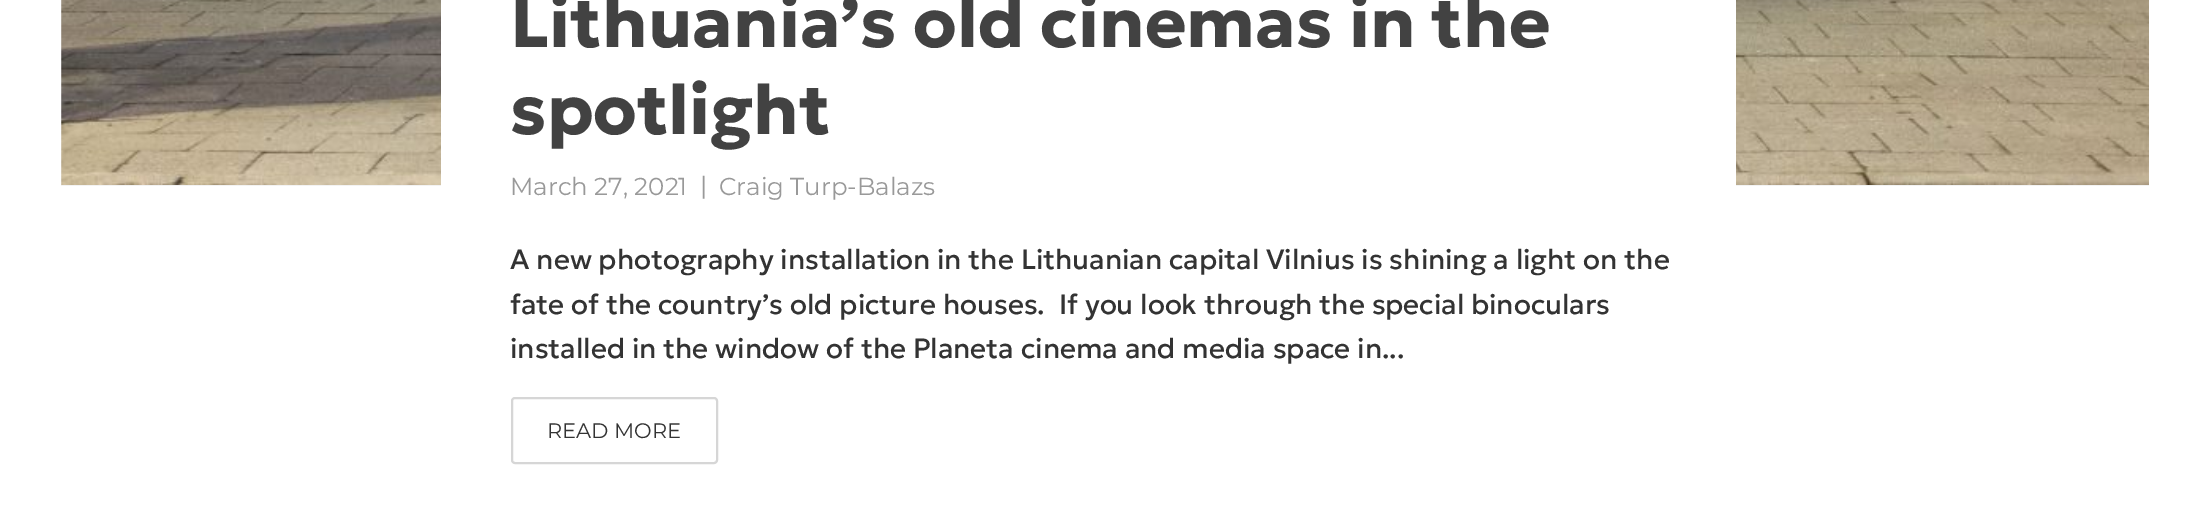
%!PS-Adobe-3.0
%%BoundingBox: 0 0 2210 512
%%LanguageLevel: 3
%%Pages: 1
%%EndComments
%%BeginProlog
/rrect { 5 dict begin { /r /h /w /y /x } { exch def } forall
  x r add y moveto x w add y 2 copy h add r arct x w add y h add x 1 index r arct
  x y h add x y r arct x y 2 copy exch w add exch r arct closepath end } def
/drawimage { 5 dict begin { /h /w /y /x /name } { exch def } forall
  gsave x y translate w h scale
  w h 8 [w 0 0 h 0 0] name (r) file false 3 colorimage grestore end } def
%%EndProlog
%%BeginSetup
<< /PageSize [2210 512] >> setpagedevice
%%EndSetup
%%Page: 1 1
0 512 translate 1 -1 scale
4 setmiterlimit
1 setgray
0 0 2210 512 rectfill
0.953 setgray
61 0 2088 186 rectfill
(images/1.raw) 61 0 2088 185 drawimage
1 setgray
441 0 1295 186 rectfill
0.839 setgray
2 setlinewidth
512 398 205 65 3 rrect stroke
/Geologica-Bold [70 0 0 -70 0 0] selectfont
0.259 setgray
510 47 moveto (Lithuania’s old cinemas in the) show
510 134 moveto (spotlight) show
/Montserrat-Regular [24.5 0 0 -24.5 0 0] selectfont
0.6 setgray
510 195 moveto (March 27, 2021) show
700 194 moveto (|) show
719 195 moveto (Craig Turp-Balazs) show
/Geologica-Regular [28 0 0 -28 0 0] selectfont
0.2 setgray
510 269 moveto (A new photography installation in the Lithuanian capital Vilnius is shining a light on the) show
510 314 moveto (fate of the country’s old picture houses.  If you look through the special binoculars) show
510 358 moveto (installed in the window of the Planeta cinema and media space in...) show
/Montserrat-Regular [21 0 0 -21 0 0] selectfont
547 438 moveto (READ MORE) show
showpage
%%EOF
